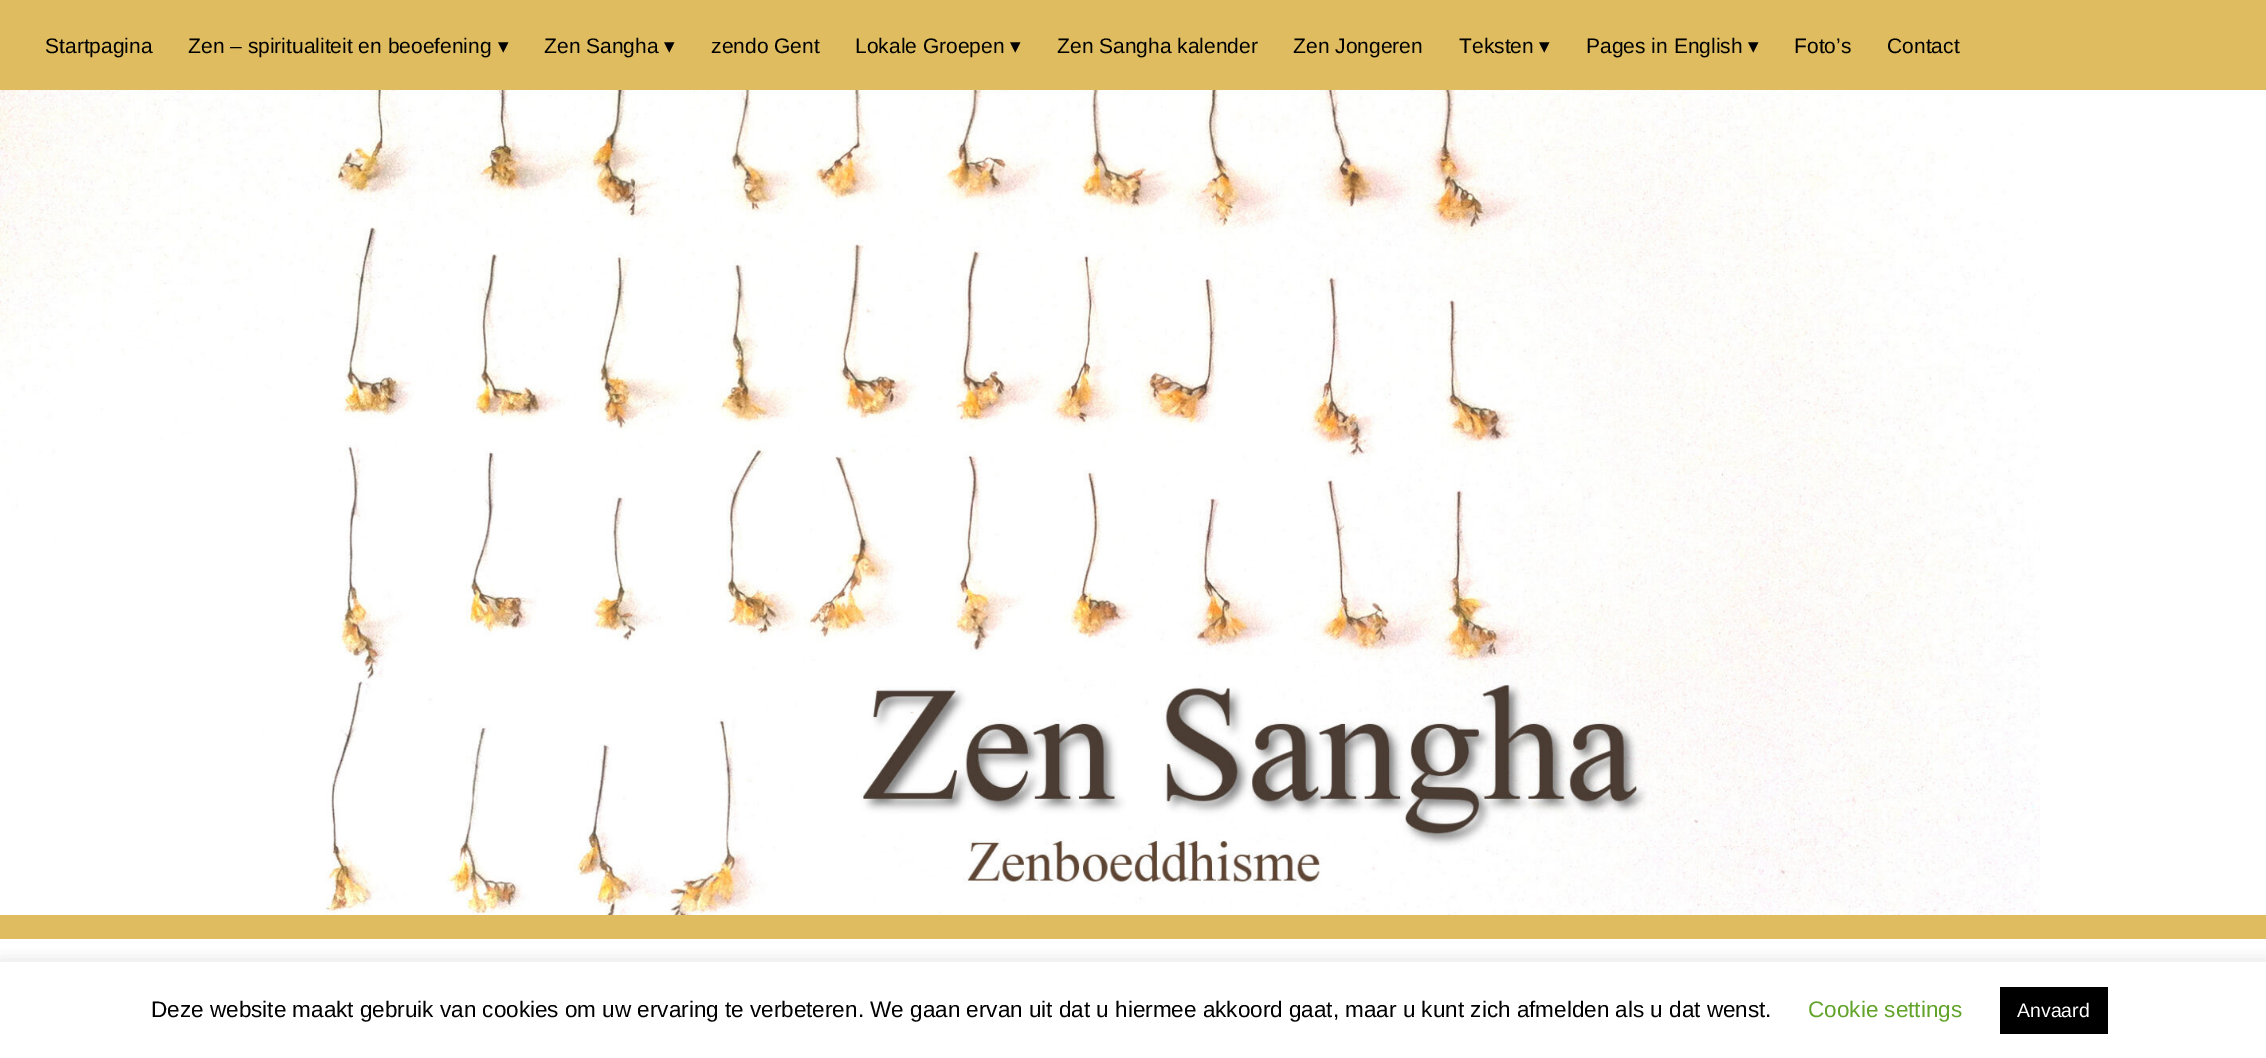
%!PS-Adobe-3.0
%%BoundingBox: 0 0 2266 1058
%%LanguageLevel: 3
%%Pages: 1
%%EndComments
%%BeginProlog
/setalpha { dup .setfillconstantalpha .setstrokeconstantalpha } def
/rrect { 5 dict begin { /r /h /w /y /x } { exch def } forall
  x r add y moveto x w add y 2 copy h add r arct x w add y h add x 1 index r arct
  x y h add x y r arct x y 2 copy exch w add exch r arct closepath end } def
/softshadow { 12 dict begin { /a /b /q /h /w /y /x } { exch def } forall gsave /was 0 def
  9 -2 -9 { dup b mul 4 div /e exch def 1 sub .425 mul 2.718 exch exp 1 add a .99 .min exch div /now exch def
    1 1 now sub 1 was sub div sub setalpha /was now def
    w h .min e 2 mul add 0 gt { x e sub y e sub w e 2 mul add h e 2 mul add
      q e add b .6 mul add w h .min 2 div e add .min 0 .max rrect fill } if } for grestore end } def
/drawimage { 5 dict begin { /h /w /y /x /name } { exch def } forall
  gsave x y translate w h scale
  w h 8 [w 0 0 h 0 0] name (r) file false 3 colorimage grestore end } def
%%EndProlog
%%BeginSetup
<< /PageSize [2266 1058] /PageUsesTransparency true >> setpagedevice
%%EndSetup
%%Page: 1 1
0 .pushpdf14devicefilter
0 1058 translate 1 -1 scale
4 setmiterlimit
1 setgray
0 0 2266 1058 rectfill
0.871 0.737 0.373 setrgbcolor
0 0 2266 90 rectfill
(images/1.raw) 0 90 2040 825 drawimage
0 915 2266 24 rectfill
gsave
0 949 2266 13 rectclip
0.675 0.671 0.671 setrgbcolor
0 960 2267 98 0 7.5 0.3 softshadow
grestore
0 setgray
2000 987 108 47 rectfill
/LiberationSans-Regular [21 0 0 -21 0 0] selectfont
45 53 moveto (Startpagina) show
188 53 moveto (Zen – spiritualiteit en beoefening) show
/DejaVuSans-Regular [21 0 0 -21 0 0] selectfont
498 53 moveto (▾) show
/LiberationSans-Regular [21 0 0 -21 0 0] selectfont
544 53 moveto (Zen Sangha) show
/DejaVuSans-Regular [21 0 0 -21 0 0] selectfont
664 53 moveto (▾) show
/LiberationSans-Regular [21 0 0 -21 0 0] selectfont
711 53 moveto (zendo Gent) show
855 53 moveto (Lokale Groepen) show
/DejaVuSans-Regular [21 0 0 -21 0 0] selectfont
1010 53 moveto (▾) show
/LiberationSans-Regular [21 0 0 -21 0 0] selectfont
1057 53 moveto (Zen Sangha kalender) show
1293 53 moveto (Zen Jongeren) show
1459 53 moveto (Teksten) show
/DejaVuSans-Regular [21 0 0 -21 0 0] selectfont
1539 53 moveto (▾) show
/LiberationSans-Regular [21 0 0 -21 0 0] selectfont
1586 53 moveto (Pages in English) show
/DejaVuSans-Regular [21 0 0 -21 0 0] selectfont
1748 53 moveto (▾) show
/LiberationSans-Regular [21 0 0 -21 0 0] selectfont
1794 53 moveto (Foto’s) show
1887 53 moveto (Contact) show
/LiberationSans-Regular [22.5 0 0 -22.5 0 0] selectfont
151 1017 moveto (Deze website maakt gebruik van cookies om uw ervaring te verbeteren. We gaan ervan uit dat u hiermee akkoord gaat, maar u kunt zich afmelden als u dat wenst.) show
0.384 0.639 0.161 setrgbcolor
1808 1017 moveto (Cookie settings) show
/LiberationSans-Regular [19.5 0 0 -19.5 0 0] selectfont
1 setgray
2017 1017 moveto (Anvaard) show
.poppdf14devicefilter showpage
%%EOF
